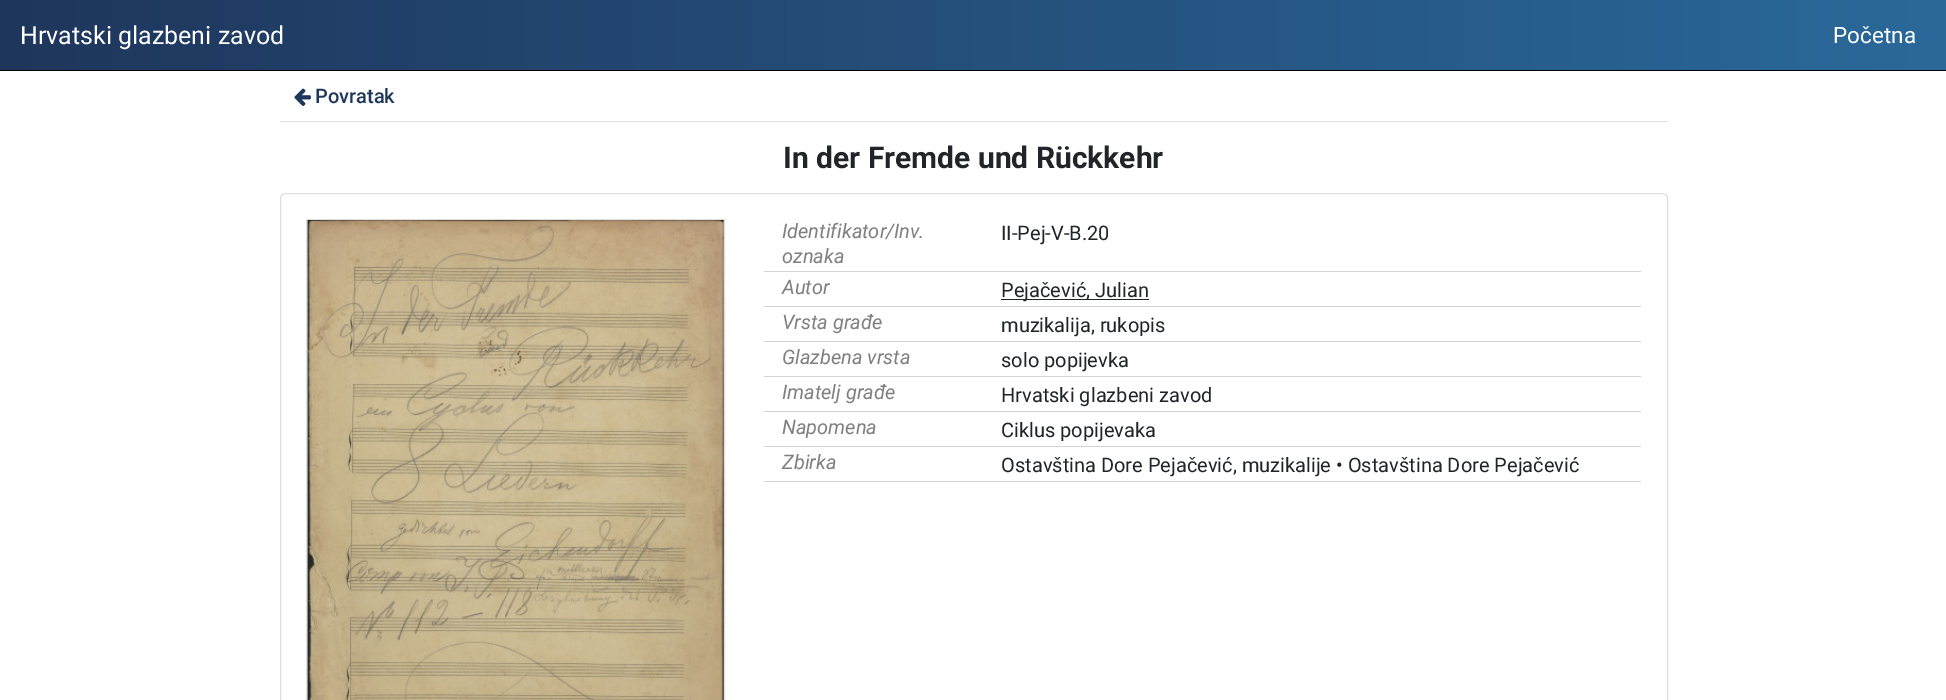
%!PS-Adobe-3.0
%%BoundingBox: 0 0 1946 700
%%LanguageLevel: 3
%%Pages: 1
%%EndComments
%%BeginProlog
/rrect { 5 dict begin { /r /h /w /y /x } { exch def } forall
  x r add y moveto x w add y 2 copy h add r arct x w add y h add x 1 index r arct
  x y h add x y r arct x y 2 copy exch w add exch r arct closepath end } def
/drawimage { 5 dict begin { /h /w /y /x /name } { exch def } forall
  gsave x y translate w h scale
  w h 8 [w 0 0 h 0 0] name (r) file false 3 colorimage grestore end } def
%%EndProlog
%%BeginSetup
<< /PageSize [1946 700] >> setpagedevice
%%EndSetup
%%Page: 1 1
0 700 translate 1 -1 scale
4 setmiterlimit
1 setgray
0 0 1946 700 rectfill
gsave newpath 0 0 moveto 1946 0 lineto 1946 70 lineto 0 70 lineto closepath clip newpath
<< /ShadingType 2 /ColorSpace /DeviceRGB /Coords [0 35 1946 35] /Extend [true true] /Function << /FunctionType 2 /Domain [0 1] /C0 [0.122 0.212 0.361] /C1 [0.165 0.412 0.604] /N 1 >> >> shfill grestore
0 setgray
0 70 1946 1 rectfill
0.875 setgray
280 121 1388 1 rectfill
(images/1.raw) 294 88 17 18 drawimage
280.5 193.5 1387 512 4.5 rrect stroke
306.5 219.5 418 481 rectstroke
(images/2.raw) 307 220 417 480 drawimage
0.827 setgray
764 271 877 1 rectfill
764 306 877 1 rectfill
0.129 0.145 0.161 setrgbcolor
1001 299 148 1 rectfill
0.827 setgray
764 341 877 1 rectfill
764 376 877 1 rectfill
764 411 877 1 rectfill
764 446 877 1 rectfill
764 481 877 1 rectfill
/Roboto-Regular [25 0 0 -25 0 0] selectfont
1 setgray
20 44 moveto (Hrvatski glazbeni zavod) show
/Roboto-Regular [22.5 0 0 -22.5 0 0] selectfont
1833 43 moveto (Početna) show
/Roboto-Medium [20 0 0 -20 0 0] selectfont
0.122 0.212 0.361 setrgbcolor
315 103 moveto (Povratak) show
/Roboto-Bold [30 0 0 -30 0 0] selectfont
0.129 0.145 0.161 setrgbcolor
783 168 moveto (In der Fremde und Rückkehr) show
/Roboto-Italic [20 0 0 -20 0 0] selectfont
0.502 setgray
782 238 moveto (Identifikator/Inv.) show
782 263 moveto (oznaka) show
/Roboto-Regular [20 0 0 -20 0 0] selectfont
0.129 0.145 0.161 setrgbcolor
1001 240 moveto (II-Pej-V-B.20) show
/Roboto-Italic [20 0 0 -20 0 0] selectfont
0.502 setgray
782 294 moveto (Autor) show
/Roboto-Regular [20 0 0 -20 0 0] selectfont
0.129 0.145 0.161 setrgbcolor
1001 297 moveto (Pejačević, Julian) show
/Roboto-Italic [20 0 0 -20 0 0] selectfont
0.502 setgray
782 329 moveto (Vrsta građe) show
/Roboto-Regular [20 0 0 -20 0 0] selectfont
0.129 0.145 0.161 setrgbcolor
1001 332 moveto (muzikalija, rukopis) show
/Roboto-Italic [20 0 0 -20 0 0] selectfont
0.502 setgray
782 364 moveto (Glazbena vrsta) show
/Roboto-Regular [20 0 0 -20 0 0] selectfont
0.129 0.145 0.161 setrgbcolor
1001 367 moveto (solo popijevka) show
/Roboto-Italic [20 0 0 -20 0 0] selectfont
0.502 setgray
782 399 moveto (Imatelj građe) show
/Roboto-Regular [20 0 0 -20 0 0] selectfont
0.129 0.145 0.161 setrgbcolor
1001 402 moveto (Hrvatski glazbeni zavod) show
/Roboto-Italic [20 0 0 -20 0 0] selectfont
0.502 setgray
782 434 moveto (Napomena) show
/Roboto-Regular [20 0 0 -20 0 0] selectfont
0.129 0.145 0.161 setrgbcolor
1001 437 moveto (Ciklus popijevaka) show
/Roboto-Italic [20 0 0 -20 0 0] selectfont
0.502 setgray
782 469 moveto (Zbirka) show
/Roboto-Regular [20 0 0 -20 0 0] selectfont
0.129 0.145 0.161 setrgbcolor
1001 472 moveto (Ostavština Dore Pejačević, muzikalije • Ostavština Dore Pejačević) show
showpage
%%EOF
